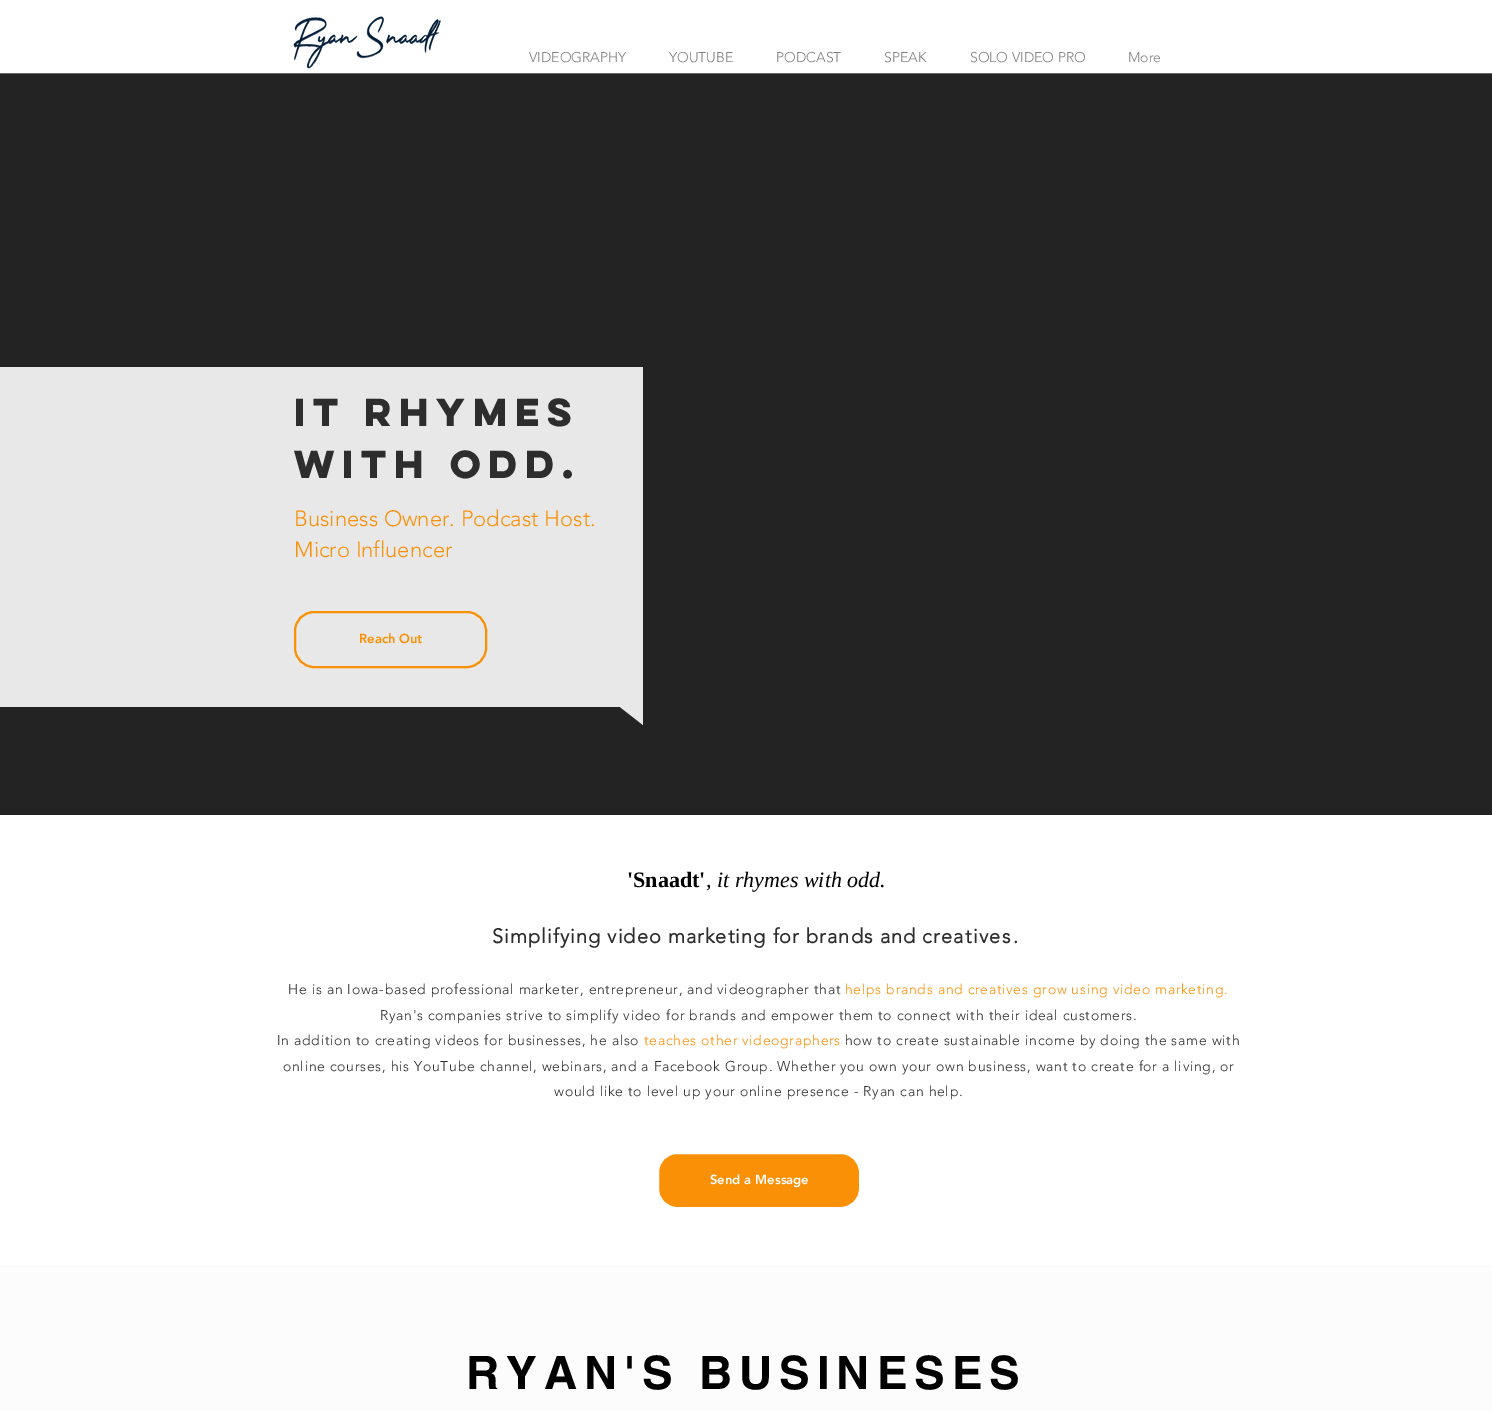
%!PS-Adobe-3.0
%%BoundingBox: 0 0 1492 1411
%%LanguageLevel: 3
%%Pages: 1
%%EndComments
%%BeginProlog
/rrect { 5 dict begin { /r /h /w /y /x } { exch def } forall
  x r add y moveto x w add y 2 copy h add r arct x w add y h add x 1 index r arct
  x y h add x y r arct x y 2 copy exch w add exch r arct closepath end } def
/drawimage { 5 dict begin { /h /w /y /x /name } { exch def } forall
  gsave x y translate w h scale
  w h 8 [w 0 0 h 0 0] name (r) file false 3 colorimage grestore end } def
%%EndProlog
%%BeginSetup
<< /PageSize [1492 1411] >> setpagedevice
%%EndSetup
%%Page: 1 1
0 1411 translate 1 -1 scale
4 setmiterlimit
1 setgray
0 0 1492 1411 rectfill
(images/1.raw) 292 14 151 55 drawimage
0.4 setgray
0 73 1492 1 rectfill
0.141 0.137 0.137 setrgbcolor
0 74 1492 741 rectfill
0.91 setgray
0 367 643 340 rectfill
0.98 0.565 0.024 setrgbcolor
2 setlinewidth
295 612 191 55 19 rrect stroke
0.91 setgray
newpath 620 707 moveto 643 707 lineto 643 725 lineto closepath fill
0.98 0.565 0.024 setrgbcolor
658 1153 202 55 19 rrect gsave fill grestore
1 setgray
stroke
0.988 setgray
0 1265 1492 146 rectfill
/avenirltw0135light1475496-Light [14 0 0 -14 0 0] selectfont
0.506 setgray
529 62 moveto (VIDEOGRAPHY) show
669 62 moveto (YOUTUBE) show
776 62 moveto (PODCAST) show
884 62 moveto (SPEAK) show
970 62 moveto (SOLO VIDEO PRO) show
1128 62 moveto (More) show
/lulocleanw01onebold-Bold [35 0 0 -35 0 0] selectfont
0.176 setgray
294 426 moveto (It RHYMES) show
294 478 moveto (WITH ODD.) show
/avenirltw0135light1475496-Light [22 0 0 -22 0 0] selectfont
0.98 0.565 0.024 setrgbcolor
294 526 moveto (Business Owner. Podcast Host.) show
294 557 moveto (Micro Influencer) show
/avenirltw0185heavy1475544-Black [13 0 0 -13 0 0] selectfont
359 643 moveto (Reach Out) show
/LiberationSerif-Bold [22 0 0 -22 0 0] selectfont
0 setgray
627 887 moveto ('Snaadt') show
/LiberationSerif-Italic [22 0 0 -22 0 0] selectfont
706 887 moveto (, it rhymes with odd.) show
/avenirltw0135light1475496-Bold [20 0 0 -20 0 0] selectfont
0.176 setgray
492 943 moveto 1 0 (Simplifying video marketing for brands and) ashow
922 943 moveto 1.25 0 (creatives) ashow
1013 943 moveto 1 0 (.) ashow
/avenirltw0135light1475496-Light [14 0 0 -14 0 0] selectfont
288 994 moveto 0.7 0 (He is an Iowa-based professional marketer, entrepreneur, and videographer that) ashow
0.98 0.565 0.024 setrgbcolor
845 994 moveto 0.7 0 (helps brands and creatives grow using video marketing.) ashow
0.176 setgray
380 1020 moveto 0.7 0 (Ryan's companies strive to simplify video for brands and empower them to connect with their ideal customers.) ashow
277 1045 moveto 0.7 0 (In addition to creating videos for businesses, he also) ashow
0.98 0.565 0.024 setrgbcolor
644 1045 moveto 0.7 0 (teaches other videographers) ashow
0.176 setgray
845 1045 moveto 0.7 0 (how to create sustainable income by doing the same with) ashow
283 1071 moveto 0.7 0 (online courses, his YouTube channel, webinars, and a Facebook Group. Whether you own your own business, want to create for a living, or) ashow
554 1096 moveto 0.7 0 (would like to level up your online presence - Ryan can help.) ashow
/avenirltw0185heavy1475544-Black [13 0 0 -13 0 0] selectfont
1 setgray
710 1184 moveto (Send a Message) show
/helvetica-Bold [46 0 0 -46 0 0] selectfont
0 setgray
466 1389 moveto 6.9 0 (RYAN'S BUSINESES) ashow
showpage
%%EOF
